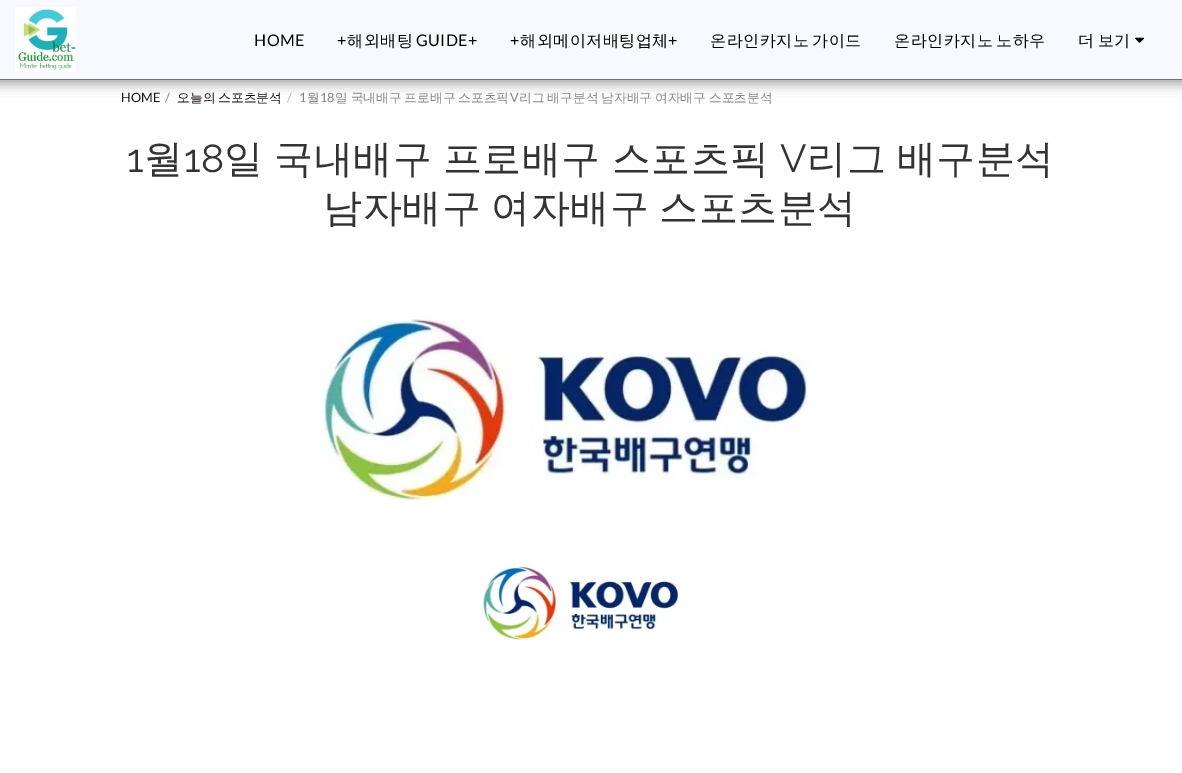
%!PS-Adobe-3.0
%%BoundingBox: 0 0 1182 773
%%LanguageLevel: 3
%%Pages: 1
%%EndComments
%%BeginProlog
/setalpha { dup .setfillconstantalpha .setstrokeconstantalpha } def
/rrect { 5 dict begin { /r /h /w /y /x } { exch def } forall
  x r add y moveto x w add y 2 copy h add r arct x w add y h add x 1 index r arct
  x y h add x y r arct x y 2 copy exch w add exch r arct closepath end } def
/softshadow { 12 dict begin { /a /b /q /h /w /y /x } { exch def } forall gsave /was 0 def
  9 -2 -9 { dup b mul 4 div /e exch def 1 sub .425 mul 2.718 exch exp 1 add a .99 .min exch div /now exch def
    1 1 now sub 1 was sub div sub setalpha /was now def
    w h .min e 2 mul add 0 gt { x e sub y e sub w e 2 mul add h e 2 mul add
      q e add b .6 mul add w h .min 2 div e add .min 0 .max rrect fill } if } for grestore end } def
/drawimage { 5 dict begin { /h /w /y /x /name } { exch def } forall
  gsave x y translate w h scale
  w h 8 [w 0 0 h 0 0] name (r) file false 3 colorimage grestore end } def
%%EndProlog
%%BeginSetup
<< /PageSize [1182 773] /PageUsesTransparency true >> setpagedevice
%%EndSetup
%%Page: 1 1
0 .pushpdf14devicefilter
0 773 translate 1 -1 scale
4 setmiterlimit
1 setgray
0 0 1182 773 rectfill
0 setgray
-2 0 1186 84 0 6 0.35 softshadow
0.973 0.973 1 setrgbcolor
0 0 1182 79 rectfill
0.439 setgray
0 79 1182 1 rectfill
(images/1.raw) 15 7 61 65 drawimage
(images/2.raw) 1135 37 9 6 drawimage
(images/3.raw) 321 318 487 186 drawimage
(images/4.raw) 482 566 197 76 drawimage
/Lato-Regular [16 0 0 -16 0 0] selectfont
0 setgray
254 46 moveto 0.5 0 (HOME) ashow
337 46 moveto 0.5 0 (+) ashow
/WenQuanYiZenHei-Medium [16 0 0 -16 0 0] selectfont
347 46 moveto 0.5 0 (해외배팅) ashow
/Lato-Regular [16 0 0 -16 0 0] selectfont
416 46 moveto 0.5 0 (GUIDE+) ashow
510 46 moveto 0.5 0 (+) ashow
/WenQuanYiZenHei-Medium [16 0 0 -16 0 0] selectfont
520 46 moveto 0.5 0 (해외메이저배팅업체) ashow
/Lato-Regular [16 0 0 -16 0 0] selectfont
668 46 moveto 0.5 0 (+) ashow
/WenQuanYiZenHei-Medium [16 0 0 -16 0 0] selectfont
710 46 moveto -2 0 32 0.5 0 (온라인카지노 가이드) awidthshow
894 46 moveto -2 0 32 0.5 0 (온라인카지노 노하우) awidthshow
1078 46 moveto -2 0 32 0.5 0 (더 보기) awidthshow
/Lato-Regular [12.75 0 0 -12.75 0 0] selectfont
0.106 0.071 0.059 setrgbcolor
121 102 moveto (HOME) show
0.522 setgray
165 102 moveto (/) show
/WenQuanYiZenHei-Medium [12.75 0 0 -12.75 0 0] selectfont
0.106 0.071 0.059 setrgbcolor
177 102 moveto -1 0 32 (오늘의 스포츠분석) widthshow
/Lato-Regular [12.75 0 0 -12.75 0 0] selectfont
0.714 setgray
287 102 moveto (/) show
0.522 setgray
299 102 moveto (1) show
/WenQuanYiZenHei-Medium [12.75 0 0 -12.75 0 0] selectfont
307 102 moveto (월) show
/Lato-Regular [12.75 0 0 -12.75 0 0] selectfont
320 102 moveto (18) show
/WenQuanYiZenHei-Medium [12.75 0 0 -12.75 0 0] selectfont
335 102 moveto -1 0 32 (일 국내배구 프로배구 스포츠픽) widthshow
/Lato-Regular [12.75 0 0 -12.75 0 0] selectfont
510 102 moveto (V) show
/WenQuanYiZenHei-Medium [12.75 0 0 -12.75 0 0] selectfont
519 102 moveto -1 0 32 (리그 배구분석 남자배구 여자배구 스포츠분석) widthshow
/Raleway-Regular [39 0 0 -39 0 0] selectfont
0.2 setgray
127 172 moveto 0.5 0 (1) ashow
/WenQuanYiZenHei-Medium [39 0 0 -39 0 0] selectfont
144 172 moveto 0.5 0 (월) ashow
/Raleway-Regular [39 0 0 -39 0 0] selectfont
184 172 moveto 0.5 0 (18) ashow
/WenQuanYiZenHei-Medium [39 0 0 -39 0 0] selectfont
224 172 moveto -1.5 0 32 0.5 0 (일 국내배구 프로배구 스포츠픽) awidthshow
/Raleway-Regular [39 0 0 -39 0 0] selectfont
780 172 moveto 0.5 0 (V) ashow
/WenQuanYiZenHei-Medium [39 0 0 -39 0 0] selectfont
807 172 moveto -1.5 0 32 0.5 0 (리그 배구분석) awidthshow
323 221 moveto -2 0 32 0.5 0 (남자배구 여자배구 스포츠분석) awidthshow
.poppdf14devicefilter showpage
%%EOF
